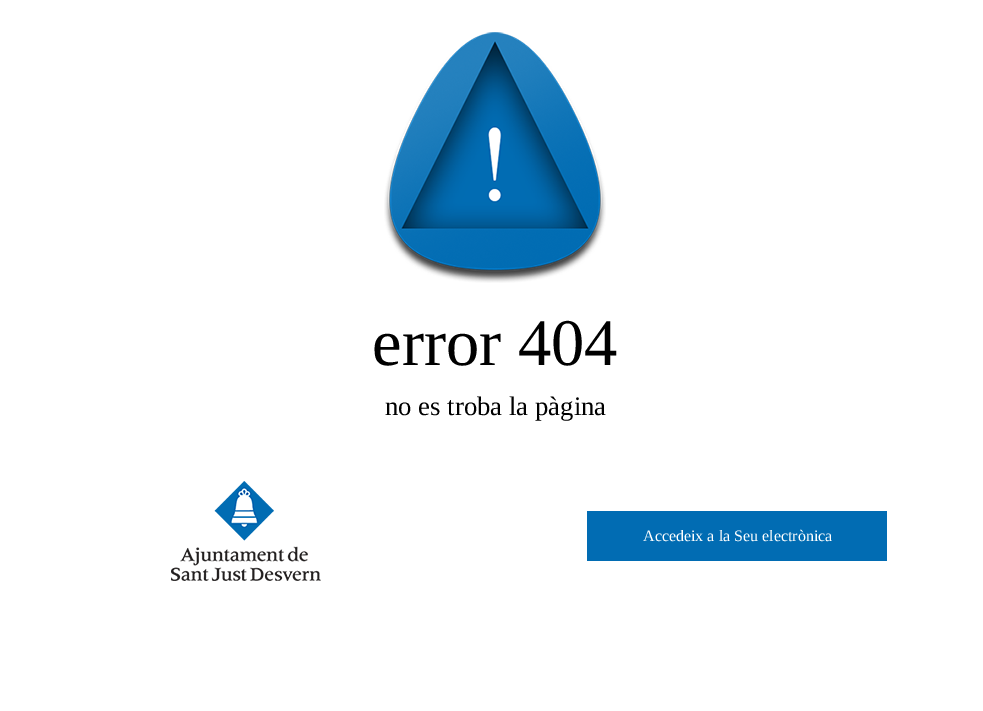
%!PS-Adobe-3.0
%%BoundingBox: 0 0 983 711
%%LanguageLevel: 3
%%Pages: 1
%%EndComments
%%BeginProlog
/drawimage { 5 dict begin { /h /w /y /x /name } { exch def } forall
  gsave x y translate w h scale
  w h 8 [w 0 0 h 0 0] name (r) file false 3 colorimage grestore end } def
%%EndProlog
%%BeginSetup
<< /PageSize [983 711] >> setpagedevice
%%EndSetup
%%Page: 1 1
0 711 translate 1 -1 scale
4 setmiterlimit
1 setgray
0 0 983 711 rectfill
(images/1.raw) 384 32 222 251 drawimage
(images/2.raw) 171 481 150 100 drawimage
0.004 0.424 0.702 setrgbcolor
587 511 300 50 rectfill
/LiberationSerif-Regular [66.5 0 0 -66.5 0 0] selectfont
0 setgray
372 365 moveto (error 404) show
/LiberationSerif-Regular [26.75 0 0 -26.75 0 0] selectfont
385 415 moveto (no es troba la pàgina) show
/LiberationSerif-Regular [16 0 0 -16 0 0] selectfont
1 setgray
643 541 moveto (Accedeix a la Seu electrònica) show
showpage
%%EOF
